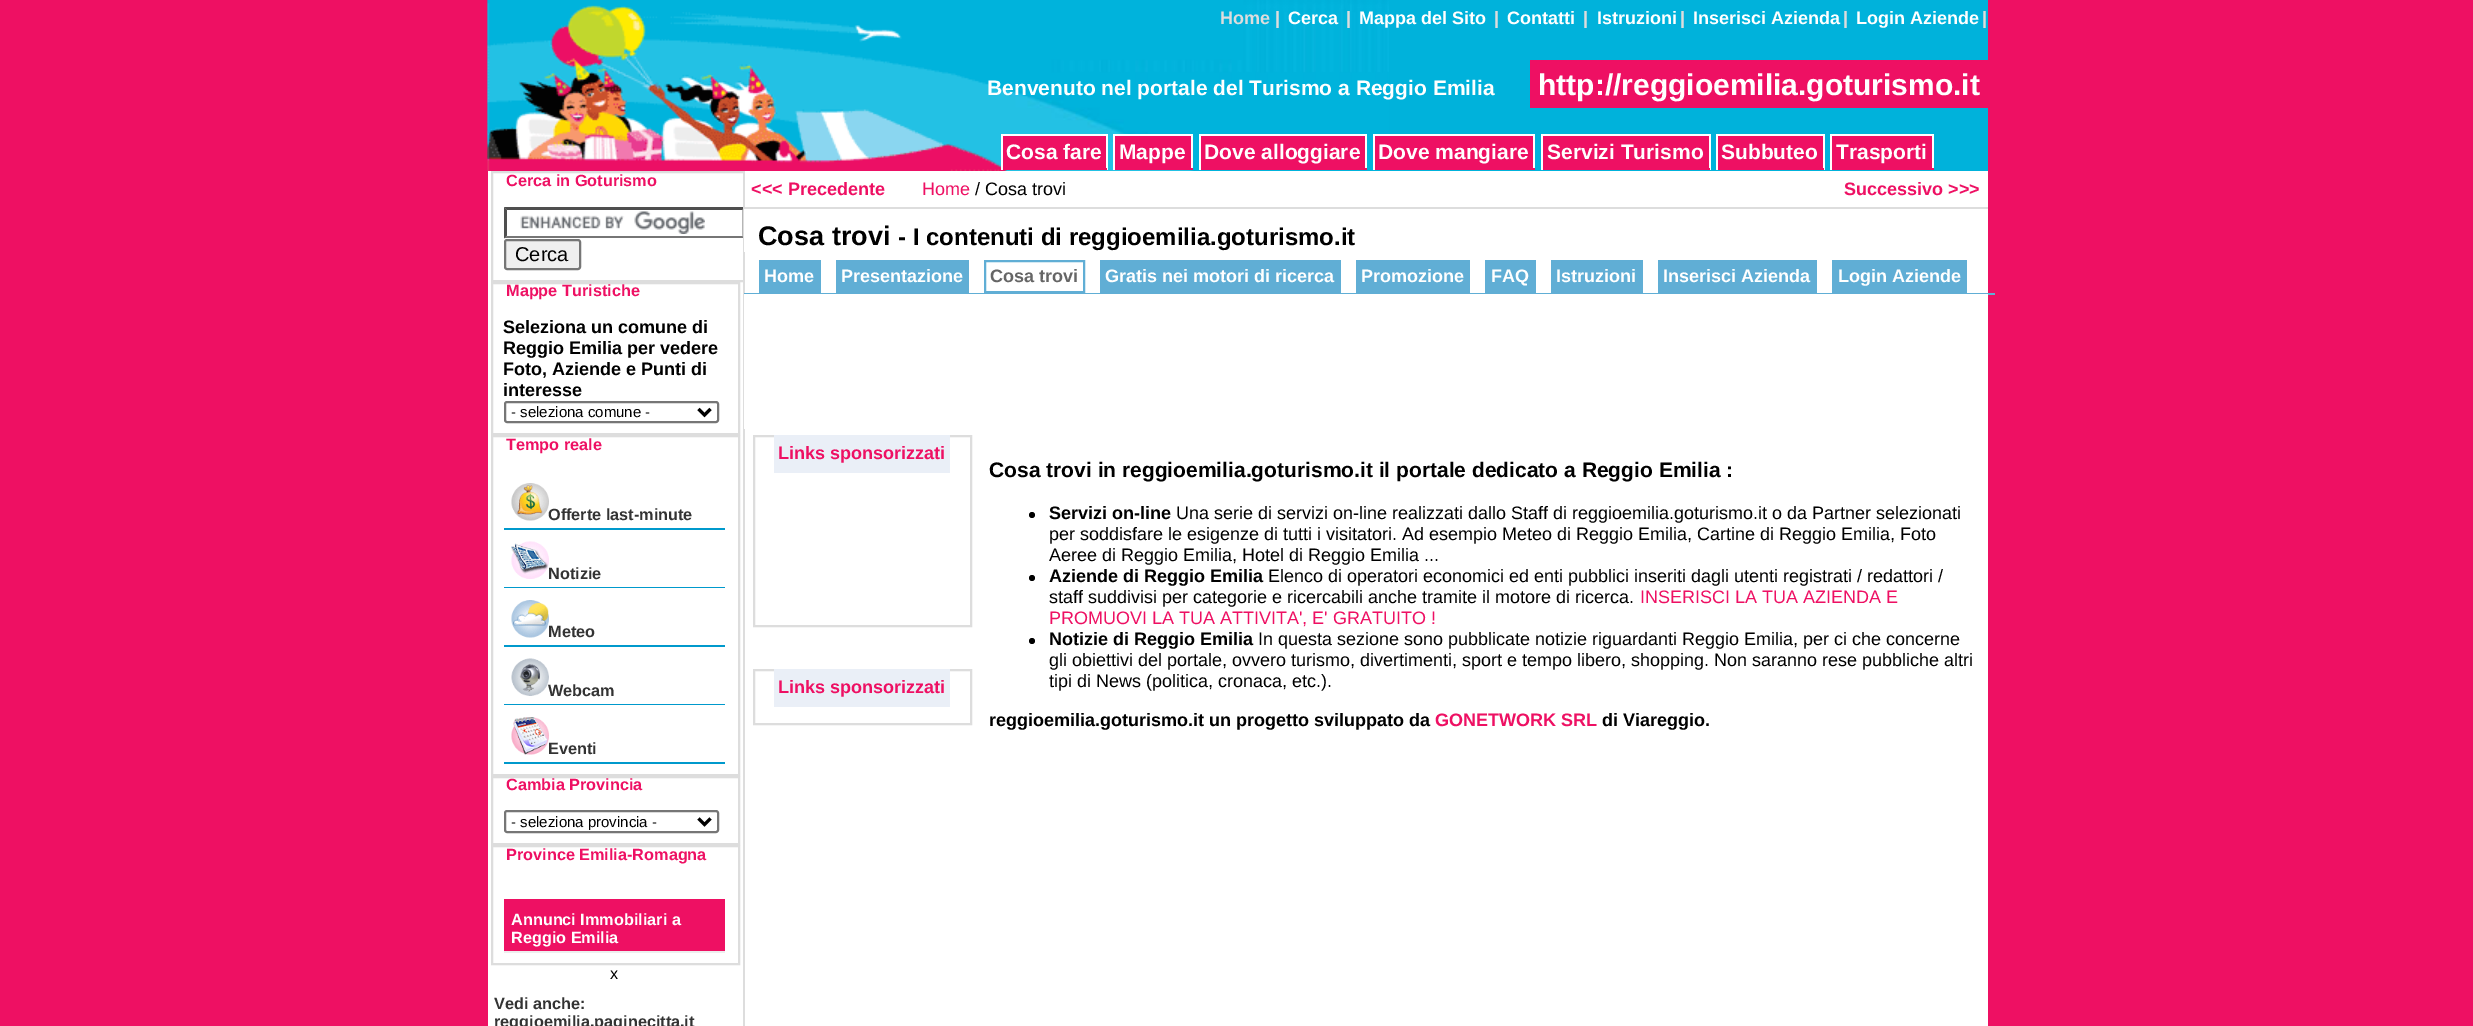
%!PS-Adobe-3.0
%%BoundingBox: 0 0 2473 1026
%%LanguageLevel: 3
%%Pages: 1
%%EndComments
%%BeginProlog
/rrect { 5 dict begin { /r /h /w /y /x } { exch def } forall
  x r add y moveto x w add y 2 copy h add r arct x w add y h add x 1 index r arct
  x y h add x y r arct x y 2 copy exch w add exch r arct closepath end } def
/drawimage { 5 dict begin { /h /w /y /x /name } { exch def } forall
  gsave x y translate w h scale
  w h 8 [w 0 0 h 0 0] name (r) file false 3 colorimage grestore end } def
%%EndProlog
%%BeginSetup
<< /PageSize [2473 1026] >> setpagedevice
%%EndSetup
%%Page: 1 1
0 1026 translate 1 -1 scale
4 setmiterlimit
0.933 0.063 0.388 setrgbcolor
0 0 2473 1026 rectfill
0 0.698 0.859 setrgbcolor
1389 0 599 171 rectfill
(images/1.raw) 487 0 902 171 drawimage
(images/2.raw) 487 0 521 171 drawimage
0.933 0.063 0.388 setrgbcolor
1530 60 458 48 rectfill
1003 136 103 32 rectfill
1 setgray
1001 134 106 2 rectfill
1106 134 2 36 rectfill
0.933 0.063 0.388 setrgbcolor
1001 168 106 2 rectfill
1 setgray
1001 134 2 36 rectfill
0.933 0.063 0.388 setrgbcolor
1115 136 76 32 rectfill
1 setgray
1113 134 80 2 rectfill
1191 134 2 36 rectfill
0.933 0.063 0.388 setrgbcolor
1113 168 80 2 rectfill
1 setgray
1113 134 2 36 rectfill
0.933 0.063 0.388 setrgbcolor
1201 136 164 32 rectfill
1 setgray
1199 134 168 2 rectfill
1365 134 2 36 rectfill
0.933 0.063 0.388 setrgbcolor
1199 168 168 2 rectfill
1 setgray
1199 134 2 36 rectfill
0.933 0.063 0.388 setrgbcolor
1375 136 158 32 rectfill
1 setgray
1373 134 162 2 rectfill
1533 134 2 36 rectfill
0.933 0.063 0.388 setrgbcolor
1373 168 162 2 rectfill
1 setgray
1373 134 2 36 rectfill
0.933 0.063 0.388 setrgbcolor
1543 136 166 32 rectfill
1 setgray
1541 134 169 2 rectfill
1709 134 2 36 rectfill
0.933 0.063 0.388 setrgbcolor
1541 168 169 2 rectfill
1 setgray
1541 134 2 36 rectfill
0.933 0.063 0.388 setrgbcolor
1718 136 105 32 rectfill
1 setgray
1716 134 108 2 rectfill
1823 134 2 36 rectfill
0.933 0.063 0.388 setrgbcolor
1716 168 108 2 rectfill
1 setgray
1716 134 2 36 rectfill
0.933 0.063 0.388 setrgbcolor
1832 136 100 32 rectfill
1 setgray
1830 134 104 2 rectfill
1932 134 2 36 rectfill
0.933 0.063 0.388 setrgbcolor
1830 168 104 2 rectfill
1 setgray
1830 134 2 36 rectfill
488 171 255 855 rectfill
0.867 setgray
2 setlinewidth
492 172 266 109 rectstroke
(images/3.raw) 520 211 185 23 drawimage
0.31 setgray
newpath 504 207 moveto 746 207 lineto 742 210 lineto 507 210 lineto closepath fill
0.463 setgray
newpath 745.5 207 moveto 745.5 238.5 lineto 742.5 235.5 lineto 742.5 210 lineto closepath fill
newpath 746 238 moveto 504 238 lineto 507 236 lineto 742 236 lineto closepath fill
0.31 setgray
newpath 504 238.5 moveto 504 207 lineto 507 210 lineto 507 235.5 lineto closepath fill
0.937 setgray
505 240 75 29 2 rrect gsave fill grestore
0.463 setgray
stroke
0.867 setgray
492 283 247 151 rectstroke
0.463 setgray
505 402 213 20 2 rrect stroke
0 setgray
3 setlinewidth
newpath 698.5 409 moveto 704.5 415 lineto 710.5 409 lineto stroke
0.867 setgray
2 setlinewidth
492 436 247 339 rectstroke
0 0.6 0.8 setrgbcolor
504 528 221 2 rectfill
(images/4.raw) 511 483 38 38 drawimage
504 587 221 1 rectfill
(images/5.raw) 511 541 38 38 drawimage
504 645 221 2 rectfill
(images/6.raw) 511 600 38 38 drawimage
504 704 221 1 rectfill
(images/7.raw) 511 658 38 38 drawimage
504 762 221 2 rectfill
(images/8.raw) 511 717 38 38 drawimage
0.867 setgray
492 777 247 67 rectstroke
0.463 setgray
505 811 213 21 2 rrect stroke
0 setgray
3 setlinewidth
newpath 698.5 818.5 moveto 704.5 824.5 lineto 710.5 818.5 lineto stroke
0.867 setgray
2 setlinewidth
492 846 247 118 rectstroke
0.933 0.063 0.388 setrgbcolor
504 899 221 52 rectfill
0.933 setgray
504 951 221 2 rectfill
1 setgray
745 171 1243 855 rectfill
0.867 setgray
743 171 2 855 rectfill
1 setgray
744 209 1 43 rectfill
0.867 setgray
744 207 1244 2 rectfill
0.376 0.682 0.835 setrgbcolor
744 293 1251 2 rectfill
759 260 62 33 rectfill
836 260 133 33 rectfill
985 261 99 31 rectstroke
1100 260 241 33 rectfill
1356 260 114 33 rectfill
1485 260 51 33 rectfill
1551 260 92 33 rectfill
1658 260 159 33 rectfill
1832 260 135 33 rectfill
1 setgray
744 294 1244 135 rectfill
0.867 setgray
754 436 217 190 rectstroke
0.918 0.937 0.969 setrgbcolor
774 435 176 38 rectfill
0.867 setgray
754 670 217 54 rectstroke
0.918 0.937 0.969 setrgbcolor
774 669 176 38 rectfill
0 setgray
newpath 1032 515 3 0 360 arc closepath fill
newpath 1032 578 3 0 360 arc closepath fill
newpath 1032 641 3 0 360 arc closepath fill
/LiberationSans-Bold [18 0 0 -18 0 0] selectfont
0.867 setgray
1220 24 moveto (Home |) show
1 setgray
1288 24 moveto (Cerca) show
0.867 setgray
1346 24 moveto (|) show
1 setgray
1359 24 moveto (Mappa del Sito) show
0.867 setgray
1494 24 moveto (|) show
1 setgray
1507 24 moveto (Contatti) show
0.867 setgray
1583 24 moveto (|) show
1 setgray
1597 24 moveto (Istruzioni) show
0.867 setgray
1680 24 moveto (|) show
1 setgray
1693 24 moveto (Inserisci Azienda) show
0.867 setgray
1843 24 moveto (|) show
1 setgray
1856 24 moveto (Login Aziende) show
0.867 setgray
1982 24 moveto (|) show
/LiberationSans-Bold [21 0 0 -21 0 0] selectfont
1 setgray
987 95 moveto (Benvenuto nel portale del Turismo a Reggio Emilia) show
/LiberationSans-Bold [30 0 0 -30 0 0] selectfont
1538 95 moveto (http://reggioemilia.goturismo.it) show
/LiberationSans-Bold [21 0 0 -21 0 0] selectfont
1006 159 moveto (Cosa fare) show
1119 159 moveto (Mappe) show
1204 159 moveto (Dove alloggiare) show
1378 159 moveto (Dove mangiare) show
1547 159 moveto (Servizi Turismo) show
1721 159 moveto (Subbuteo) show
1836 159 moveto (Trasporti) show
/LiberationSans-Bold [16.25 0 0 -16.25 0 0] selectfont
0.933 0.063 0.388 setrgbcolor
506 186 moveto (Cerca in Goturismo) show
/LiberationSans-Regular [20 0 0 -20 0 0] selectfont
0 setgray
515 261 moveto (Cerca) show
/LiberationSans-Bold [16.25 0 0 -16.25 0 0] selectfont
0.933 0.063 0.388 setrgbcolor
506 296 moveto (Mappe Turistiche) show
/LiberationSans-Bold [18 0 0 -18 0 0] selectfont
0 setgray
503 333 moveto (Seleziona un comune di) show
503 354 moveto (Reggio Emilia per vedere) show
503 375 moveto (Foto, Aziende e Punti di) show
503 396 moveto (interesse) show
/LiberationSans-Regular [15 0 0 -15 0 0] selectfont
511 417 moveto (- seleziona comune -) show
/LiberationSans-Bold [16.25 0 0 -16.25 0 0] selectfont
0.933 0.063 0.388 setrgbcolor
506 450 moveto (Tempo reale) show
0.2 setgray
548 520 moveto (Offerte last-minute) show
548 579 moveto (Notizie) show
548 637 moveto (Meteo) show
548 696 moveto (Webcam) show
548 754 moveto (Eventi) show
0.933 0.063 0.388 setrgbcolor
506 790 moveto (Cambia Provincia) show
/LiberationSans-Regular [15 0 0 -15 0 0] selectfont
0 setgray
511 827 moveto (- seleziona provincia -) show
/LiberationSans-Bold [16.25 0 0 -16.25 0 0] selectfont
0.933 0.063 0.388 setrgbcolor
506 860 moveto (Province Emilia-Romagna) show
1 setgray
511 925 moveto (Annunci Immobiliari a) show
511 943 moveto (Reggio Emilia) show
/LiberationSans-Regular [16.25 0 0 -16.25 0 0] selectfont
0 setgray
610 979 moveto (x) show
/LiberationSans-Bold [16.25 0 0 -16.25 0 0] selectfont
0.2 setgray
494 1009 moveto (Vedi anche:) show
494 1027 moveto (reggioemilia.paginecitta.it) show
/LiberationSans-Bold [18 0 0 -18 0 0] selectfont
0.933 0.063 0.388 setrgbcolor
751 195 moveto (<<< Precedente) show
/LiberationSans-Regular [18 0 0 -18 0 0] selectfont
922 195 moveto (Home) show
0 setgray
975 195 moveto (/ Cosa trovi) show
/LiberationSans-Bold [18 0 0 -18 0 0] selectfont
0.933 0.063 0.388 setrgbcolor
1844 195 moveto (Successivo >>>) show
/LiberationSans-Bold [27 0 0 -27 0 0] selectfont
0 setgray
758 245 moveto (Cosa trovi) show
/LiberationSans-Bold [24 0 0 -24 0 0] selectfont
898 245 moveto (- I contenuti di reggioemilia.goturismo.it) show
/LiberationSans-Bold [18 0 0 -18 0 0] selectfont
1 setgray
764 282 moveto (Home) show
841 282 moveto (Presentazione) show
0.4 setgray
990 282 moveto (Cosa trovi) show
1 setgray
1105 282 moveto (Gratis nei motori di ricerca) show
1361 282 moveto (Promozione) show
1491 282 moveto (FAQ) show
1556 282 moveto (Istruzioni) show
1663 282 moveto (Inserisci Azienda) show
1838 282 moveto (Login Aziende) show
0.933 0.063 0.388 setrgbcolor
778 459 moveto (Links sponsorizzati) show
778 693 moveto (Links sponsorizzati) show
/LiberationSans-Bold [21 0 0 -21 0 0] selectfont
0 setgray
989 477 moveto (Cosa trovi in reggioemilia.goturismo.it il portale dedicato a Reggio Emilia :) show
/LiberationSans-Bold [18 0 0 -18 0 0] selectfont
1049 519 moveto (Servizi on-line) show
/LiberationSans-Regular [18 0 0 -18 0 0] selectfont
1176 519 moveto (Una serie di servizi on-line realizzati dallo Staff di reggioemilia.goturismo.it o da Partner selezionati) show
1049 540 moveto (per soddisfare le esigenze di tutti i visitatori. Ad esempio Meteo di Reggio Emilia, Cartine di Reggio Emilia, Foto) show
1049 561 moveto (Aeree di Reggio Emilia, Hotel di Reggio Emilia ...) show
/LiberationSans-Bold [18 0 0 -18 0 0] selectfont
1049 582 moveto (Aziende di Reggio Emilia) show
/LiberationSans-Regular [18 0 0 -18 0 0] selectfont
1268 582 moveto (Elenco di operatori economici ed enti pubblici inseriti dagli utenti registrati / redattori /) show
1049 603 moveto (staff suddivisi per categorie e ricercabili anche tramite il motore di ricerca.) show
0.933 0.063 0.388 setrgbcolor
1640 603 moveto (INSERISCI LA TUA AZIENDA E) show
1049 624 moveto (PROMUOVI LA TUA ATTIVITA', E' GRATUITO !) show
/LiberationSans-Bold [18 0 0 -18 0 0] selectfont
0 setgray
1049 645 moveto (Notizie di Reggio Emilia) show
/LiberationSans-Regular [18 0 0 -18 0 0] selectfont
1258 645 moveto (In questa sezione sono pubblicate notizie riguardanti Reggio Emilia, per ci che concerne) show
1049 666 moveto (gli obiettivi del portale, ovvero turismo, divertimenti, sport e tempo libero, shopping. Non saranno rese pubbliche altri) show
1049 687 moveto (tipi di News \(politica, cronaca, etc.\).) show
/LiberationSans-Bold [18 0 0 -18 0 0] selectfont
989 726 moveto (reggioemilia.goturismo.it un progetto sviluppato da) show
0.933 0.063 0.388 setrgbcolor
1435 726 moveto (GONETWORK SRL) show
0 setgray
1602 726 moveto (di Viareggio.) show
showpage
%%EOF
